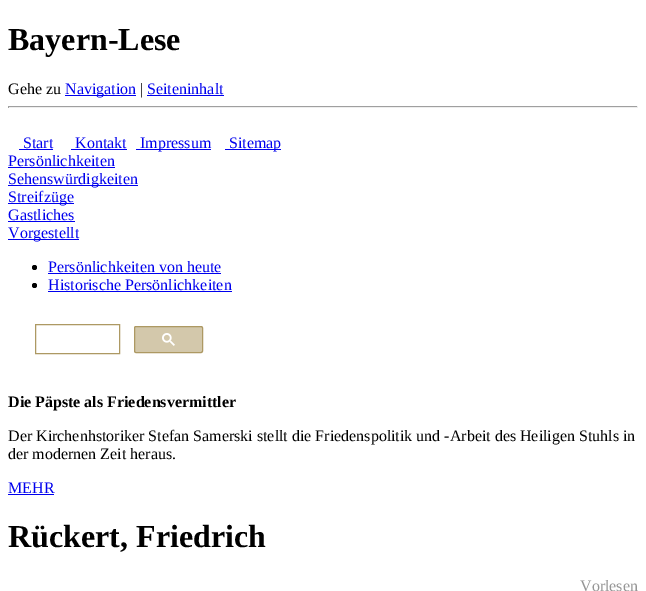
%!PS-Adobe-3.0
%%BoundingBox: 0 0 646 591
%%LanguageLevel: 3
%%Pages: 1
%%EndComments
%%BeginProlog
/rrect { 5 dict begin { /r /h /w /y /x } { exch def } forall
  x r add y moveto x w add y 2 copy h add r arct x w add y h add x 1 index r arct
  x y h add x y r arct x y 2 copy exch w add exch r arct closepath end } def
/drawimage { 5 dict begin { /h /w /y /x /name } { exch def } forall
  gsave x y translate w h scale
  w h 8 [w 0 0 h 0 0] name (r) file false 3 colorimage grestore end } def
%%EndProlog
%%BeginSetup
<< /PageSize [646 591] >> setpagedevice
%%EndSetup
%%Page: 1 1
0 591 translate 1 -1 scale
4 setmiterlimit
1 setgray
0 0 646 591 rectfill
0 0 0.933 setrgbcolor
65 95 71 1 rectfill
147 95 77 1 rectfill
0.624 setgray
8 106 630 1 rectfill
0.933 setgray
637 106 1 2 rectfill
8 107 630 1 rectfill
0.624 setgray
8 106 1 2 rectfill
0 0 0.933 setrgbcolor
19 149 34 1 rectfill
71 149 56 1 rectfill
136 149 75 1 rectfill
225 149 56 1 rectfill
8 167 107 1 rectfill
8 185 130 1 rectfill
8 203 66 1 rectfill
8 221 67 1 rectfill
8 239 71 1 rectfill
0 setgray
newpath 34.5 267.5 2.5 0 360 arc closepath fill
0 0 0.933 setrgbcolor
48 273 173 1 rectfill
0 setgray
newpath 34.5 285.5 2.5 0 360 arc closepath fill
0 0 0.933 setrgbcolor
48 291 184 1 rectfill
0.678 0.6 0.388 setrgbcolor
35.5 324.5 84 29 rectstroke
0.827 0.784 0.671 setrgbcolor
134.5 326.5 68 26 1.5 rrect gsave fill grestore
0.678 0.6 0.388 setrgbcolor
stroke
(images/1.raw) 162 333 13 13 drawimage
0 0 0.933 setrgbcolor
8 494 46 1 rectfill
/LiberationSerif-Bold [32 0 0 -32 0 0] selectfont
0 setgray
8 50 moveto (Bayern-Lese) show
/LiberationSerif-Regular [16 0 0 -16 0 0] selectfont
8 94 moveto (Gehe zu) show
0 0 0.933 setrgbcolor
65 94 moveto (Navigation) show
0 setgray
140 94 moveto (|) show
0 0 0.933 setrgbcolor
147 94 moveto (Seiteninhalt) show
23 148 moveto (Start) show
75 148 moveto (Kontakt) show
140 148 moveto (Impressum) show
229 148 moveto (Sitemap) show
8 166 moveto (Persönlichkeiten) show
8 184 moveto (Sehenswürdigkeiten) show
8 202 moveto (Streifzüge) show
8 220 moveto (Gastliches) show
8 238 moveto (Vorgestellt) show
48 272 moveto (Persönlichkeiten von heute) show
48 290 moveto (Historische Persönlichkeiten) show
/LiberationSerif-Bold [16 0 0 -16 0 0] selectfont
0 setgray
8 407 moveto (Die Päpste als Friedensvermittler) show
/LiberationSerif-Regular [16 0 0 -16 0 0] selectfont
8 441 moveto (Der Kirchenhstoriker Stefan Samerski stellt die Friedenspolitik und -Arbeit des Heiligen Stuhls in) show
8 459 moveto (der modernen Zeit heraus.) show
0 0 0.933 setrgbcolor
8 493 moveto (MEHR) show
/LiberationSerif-Bold [32 0 0 -32 0 0] selectfont
0 setgray
8 547 moveto (Rückert, Friedrich) show
/LiberationSerif-Regular [16 0 0 -16 0 0] selectfont
0.584 setgray
580 591 moveto (Vorlesen) show
showpage
%%EOF
